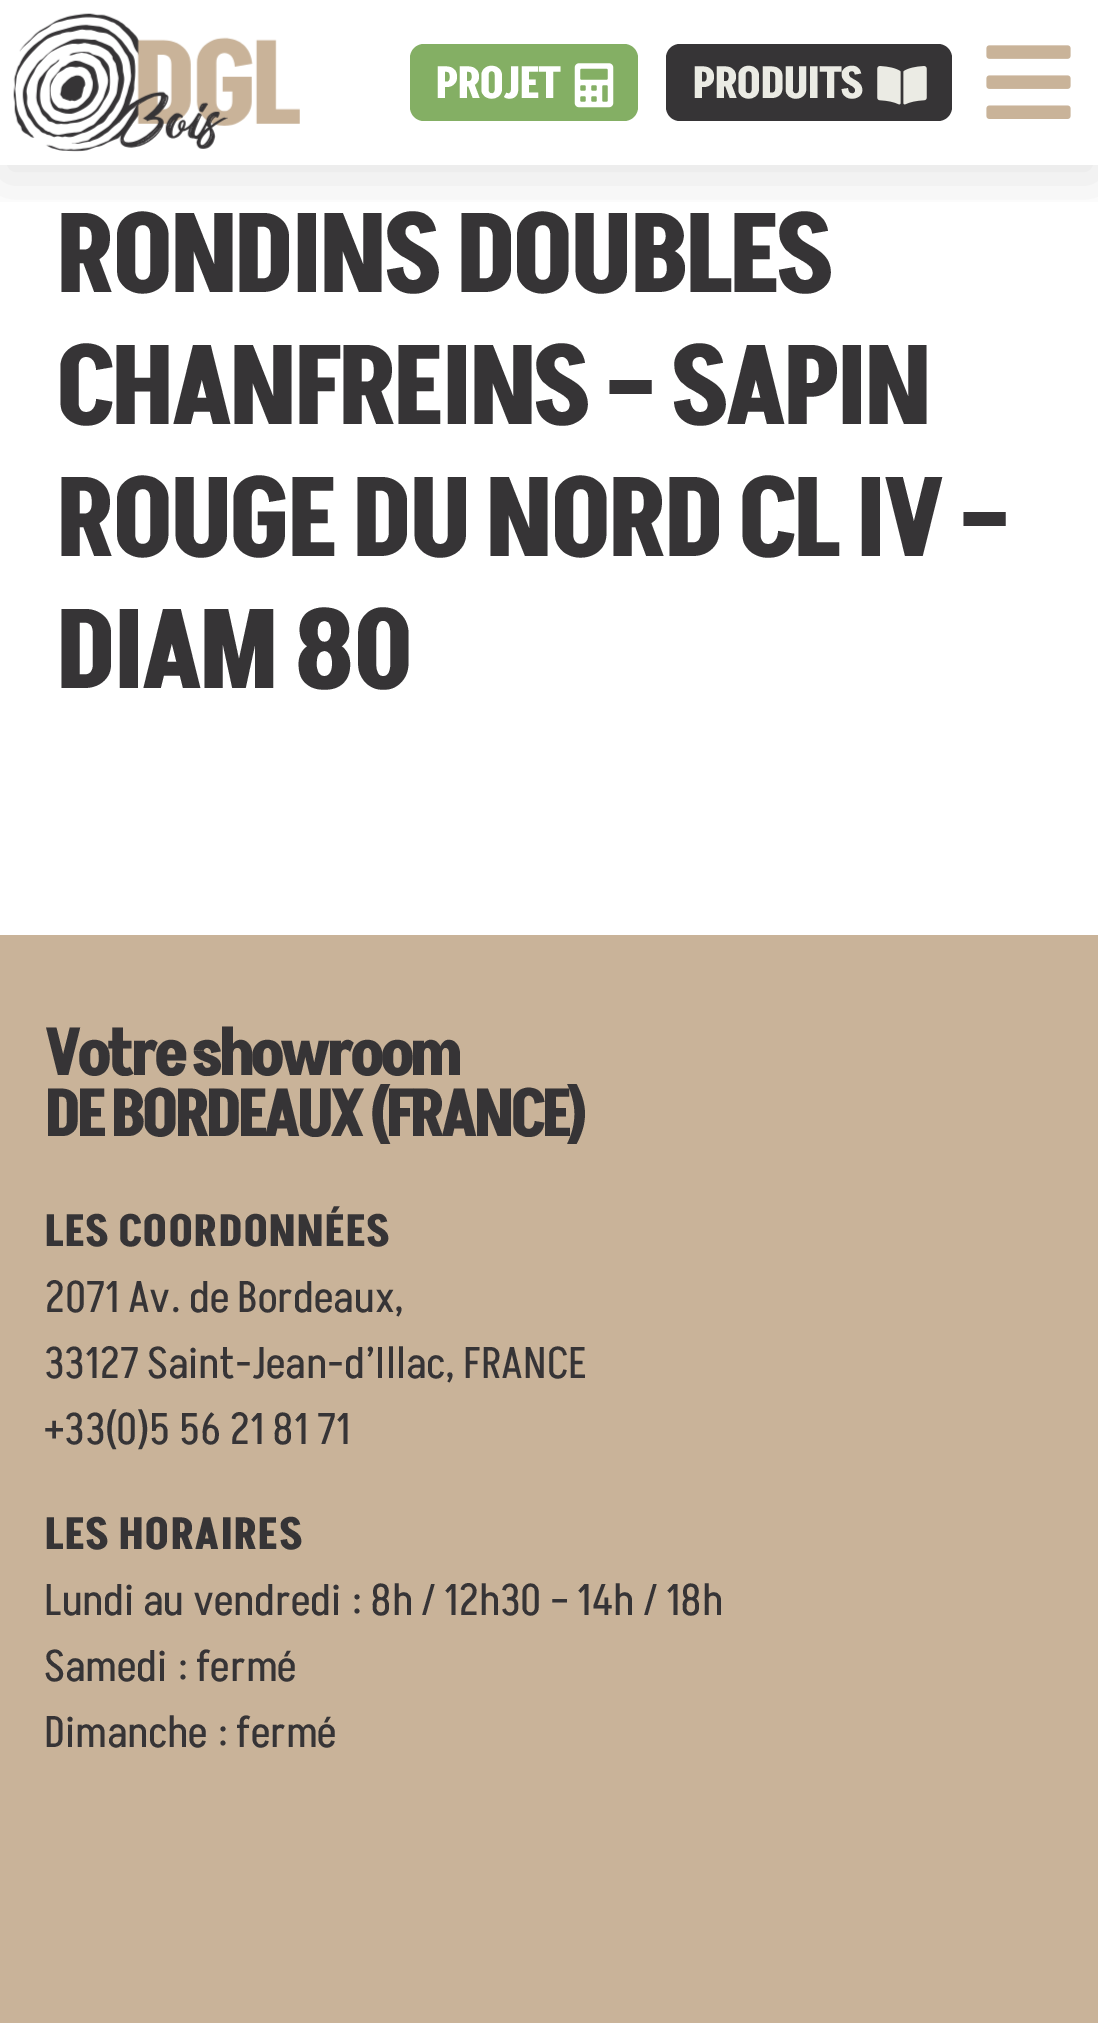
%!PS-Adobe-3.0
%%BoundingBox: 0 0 1098 2023
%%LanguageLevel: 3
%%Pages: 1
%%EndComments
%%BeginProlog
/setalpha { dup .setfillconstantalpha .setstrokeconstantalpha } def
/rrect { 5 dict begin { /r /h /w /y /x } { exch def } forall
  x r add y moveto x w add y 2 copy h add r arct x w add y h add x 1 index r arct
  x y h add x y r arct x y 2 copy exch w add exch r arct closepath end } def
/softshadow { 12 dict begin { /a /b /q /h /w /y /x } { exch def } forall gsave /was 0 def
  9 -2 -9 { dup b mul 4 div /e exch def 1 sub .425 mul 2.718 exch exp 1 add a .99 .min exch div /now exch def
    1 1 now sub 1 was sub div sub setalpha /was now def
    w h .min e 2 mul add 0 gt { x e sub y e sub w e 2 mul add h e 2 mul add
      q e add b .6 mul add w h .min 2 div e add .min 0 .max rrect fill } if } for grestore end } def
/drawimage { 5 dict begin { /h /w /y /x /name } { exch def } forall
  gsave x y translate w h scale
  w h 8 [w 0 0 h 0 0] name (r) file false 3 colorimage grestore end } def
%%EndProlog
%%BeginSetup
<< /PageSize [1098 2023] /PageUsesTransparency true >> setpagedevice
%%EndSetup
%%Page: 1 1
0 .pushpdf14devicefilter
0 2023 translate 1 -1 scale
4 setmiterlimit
1 setgray
0 0 1098 2023 rectfill
gsave
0 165 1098 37 rectclip
0 setgray
0 14 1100 165 0 27.5 0.1 softshadow
grestore
(images/1.raw) 13 13 287 139 drawimage
0.518 0.686 0.392 setrgbcolor
410 44 228 77 14 rrect fill
(images/2.raw) 574 63 40 45 drawimage
0.212 0.204 0.212 setrgbcolor
666 44 286 77 14 rrect fill
(images/3.raw) 877 66 50 39 drawimage
(images/4.raw) 986 45 85 74 drawimage
0.788 0.702 0.6 setrgbcolor
0 935 1098 1088 rectfill
/Akshar-Bold [44 0 0 -44 0 0] selectfont
1 setgray
435 98 moveto -1.75 0 (PROJET) ashow
0.922 0.922 0.894 setrgbcolor
692 98 moveto -1.75 0 (PRODUITS) ashow
/Akshar-Bold [110 0 0 -110 0 0] selectfont
0.212 0.204 0.212 setrgbcolor
55 292 moveto -5.5 0 (RONDINS DOUBLES) ashow
55 424 moveto -5.5 0 (CHANFREINS – SAPIN) ashow
55 556 moveto -5.5 0 (ROUGE DU NORD CL IV –) ashow
55 688 moveto -5.5 0 (DIAM 80) ashow
/Akshar-Bold [66 0 0 -66 0 0] selectfont
44 1075 moveto -5.5 0 (Votre showroom) ashow
44 1136 moveto -5.5 0 (DE BORDEAUX \(FRANCE\)) ashow
/Akshar-Bold [44 0 0 -44 0 0] selectfont
44 1246 moveto (LES COORDONNÉES) show
/Akshar-Regular [44 0 0 -44 0 0] selectfont
44 1312 moveto (2071 Av. de Bordeaux,) show
44 1378 moveto (33127 Saint-Jean-d’Illac, FRANCE) show
44 1444 moveto (+33\(0\)5 56 21 81 71) show
/Akshar-Bold [44 0 0 -44 0 0] selectfont
44 1549 moveto (LES HORAIRES) show
/Akshar-Regular [44 0 0 -44 0 0] selectfont
44 1615 moveto (Lundi au vendredi : 8h / 12h30 – 14h / 18h) show
44 1681 moveto (Samedi : fermé) show
44 1747 moveto (Dimanche : fermé) show
.poppdf14devicefilter showpage
%%EOF
